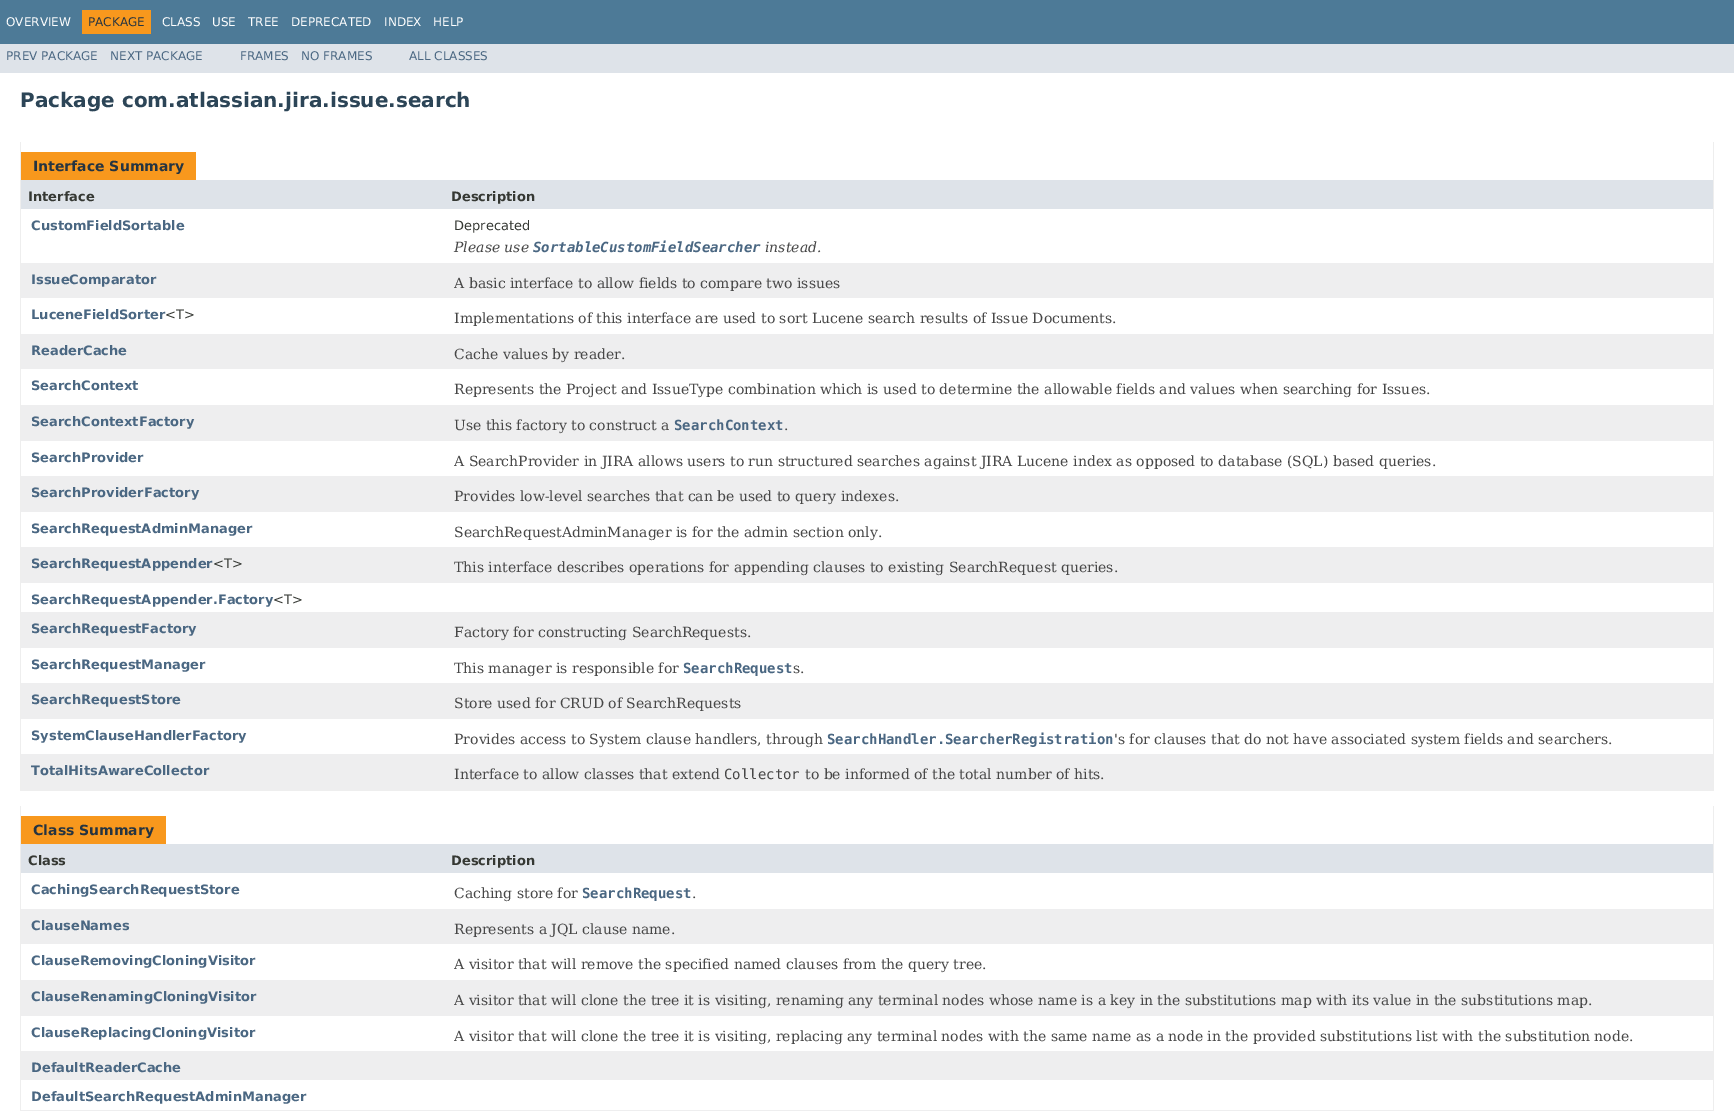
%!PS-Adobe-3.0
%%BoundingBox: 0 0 1734 1111
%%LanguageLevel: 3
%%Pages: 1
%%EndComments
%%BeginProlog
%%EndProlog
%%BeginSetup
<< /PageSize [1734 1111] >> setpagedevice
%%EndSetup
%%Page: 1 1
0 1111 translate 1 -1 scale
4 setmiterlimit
1 setgray
0 0 1734 1111 rectfill
0.302 0.478 0.592 setrgbcolor
0 0 1734 44 rectfill
0.973 0.596 0.114 setrgbcolor
82 10 69 24 rectfill
0.871 0.89 0.914 setrgbcolor
0 44 1734 29 rectfill
0.933 setgray
1713 142 1 649 rectfill
20 790 1694 1 rectfill
20 142 1 649 rectfill
0.973 0.596 0.114 setrgbcolor
21 152 175 28 rectfill
0.871 0.89 0.914 setrgbcolor
21 180 1692 29 rectfill
0.933 0.933 0.937 setrgbcolor
21 263 1692 35 rectfill
21 334 1692 35 rectfill
21 405 1692 36 rectfill
21 476 1692 36 rectfill
21 547 1692 36 rectfill
21 612 1692 36 rectfill
21 683 1692 36 rectfill
21 754 1692 36 rectfill
0.933 setgray
1713 806 1 305 rectfill
20 806 1 305 rectfill
0.973 0.596 0.114 setrgbcolor
21 816 145 28 rectfill
0.871 0.89 0.914 setrgbcolor
21 844 1692 29 rectfill
0.933 0.933 0.937 setrgbcolor
21 909 1692 35 rectfill
21 980 1692 36 rectfill
21 1051 1692 29 rectfill
21 1110 1692 1 rectfill
/DejaVuSans-Regular [12 0 0 -12 0 0] selectfont
1 setgray
6 26 moveto (OVERVIEW) show
0.145 0.204 0.255 setrgbcolor
88 26 moveto (PACKAGE) show
1 setgray
162 26 moveto (CLASS) show
212 26 moveto (USE) show
248 26 moveto (TREE) show
291 26 moveto (DEPRECATED) show
384 26 moveto (INDEX) show
433 26 moveto (HELP) show
0.29 0.404 0.51 setrgbcolor
6 60 moveto (PREV PACKAGE) show
110 60 moveto (NEXT PACKAGE) show
240 60 moveto (FRAMES) show
301 60 moveto (NO FRAMES) show
409 60 moveto (ALL CLASSES) show
/DejaVuSans-Bold [20 0 0 -20 0 0] selectfont
0.173 0.271 0.341 setrgbcolor
20 107 moveto (Package com.atlassian.jira.issue.search) show
/DejaVuSans-Bold [14 0 0 -14 0 0] selectfont
0.145 0.204 0.255 setrgbcolor
33 171 moveto (Interface Summary) show
/DejaVuSans-Bold [13 0 0 -13 0 0] selectfont
0.208 0.22 0.2 setrgbcolor
28 201 moveto (Interface) show
451 201 moveto (Description) show
0.29 0.404 0.51 setrgbcolor
31 230 moveto (CustomFieldSortable) show
/DejaVuSans-Regular [13 0 0 -13 0 0] selectfont
0.208 0.22 0.2 setrgbcolor
454 230 moveto (Deprecated) show
/DejaVuSerif-Italic [14 0 0 -14 0 0] selectfont
0.278 setgray
454 252 moveto (Please use) show
/DejaVuSansMono-BoldItalic [14 0 0 -14 0 0] selectfont
0.29 0.404 0.51 setrgbcolor
533 252 moveto (SortableCustomFieldSearcher) show
/DejaVuSerif-Italic [14 0 0 -14 0 0] selectfont
0.278 setgray
765 252 moveto (instead.) show
/DejaVuSans-Bold [13 0 0 -13 0 0] selectfont
0.29 0.404 0.51 setrgbcolor
31 284 moveto (IssueComparator) show
/DejaVuSerif-Regular [14 0 0 -14 0 0] selectfont
0.278 setgray
454 288 moveto (A basic interface to allow fields to compare two issues) show
/DejaVuSans-Bold [13 0 0 -13 0 0] selectfont
0.29 0.404 0.51 setrgbcolor
31 319 moveto (LuceneFieldSorter) show
/DejaVuSans-Regular [13 0 0 -13 0 0] selectfont
0.208 0.22 0.2 setrgbcolor
165 319 moveto (<T>) show
/DejaVuSerif-Regular [14 0 0 -14 0 0] selectfont
0.278 setgray
454 323 moveto (Implementations of this interface are used to sort Lucene search results of Issue Documents.) show
/DejaVuSans-Bold [13 0 0 -13 0 0] selectfont
0.29 0.404 0.51 setrgbcolor
31 355 moveto (ReaderCache) show
/DejaVuSerif-Regular [14 0 0 -14 0 0] selectfont
0.278 setgray
454 359 moveto (Cache values by reader.) show
/DejaVuSans-Bold [13 0 0 -13 0 0] selectfont
0.29 0.404 0.51 setrgbcolor
31 390 moveto (SearchContext) show
/DejaVuSerif-Regular [14 0 0 -14 0 0] selectfont
0.278 setgray
454 394 moveto (Represents the Project and IssueType combination which is used to determine the allowable fields and values when searching for Issues.) show
/DejaVuSans-Bold [13 0 0 -13 0 0] selectfont
0.29 0.404 0.51 setrgbcolor
31 426 moveto (SearchContextFactory) show
/DejaVuSerif-Regular [14 0 0 -14 0 0] selectfont
0.278 setgray
454 430 moveto (Use this factory to construct a) show
/DejaVuSansMono-Bold [14 0 0 -14 0 0] selectfont
0.29 0.404 0.51 setrgbcolor
674 430 moveto (SearchContext) show
/DejaVuSerif-Regular [14 0 0 -14 0 0] selectfont
0.278 setgray
784 430 moveto (.) show
/DejaVuSans-Bold [13 0 0 -13 0 0] selectfont
0.29 0.404 0.51 setrgbcolor
31 462 moveto (SearchProvider) show
/DejaVuSerif-Regular [14 0 0 -14 0 0] selectfont
0.278 setgray
454 466 moveto (A SearchProvider in JIRA allows users to run structured searches against JIRA Lucene index as opposed to database \(SQL\) based queries.) show
/DejaVuSans-Bold [13 0 0 -13 0 0] selectfont
0.29 0.404 0.51 setrgbcolor
31 497 moveto (SearchProviderFactory) show
/DejaVuSerif-Regular [14 0 0 -14 0 0] selectfont
0.278 setgray
454 501 moveto (Provides low-level searches that can be used to query indexes.) show
/DejaVuSans-Bold [13 0 0 -13 0 0] selectfont
0.29 0.404 0.51 setrgbcolor
31 533 moveto (SearchRequestAdminManager) show
/DejaVuSerif-Regular [14 0 0 -14 0 0] selectfont
0.278 setgray
454 537 moveto (SearchRequestAdminManager is for the admin section only.) show
/DejaVuSans-Bold [13 0 0 -13 0 0] selectfont
0.29 0.404 0.51 setrgbcolor
31 568 moveto (SearchRequestAppender) show
/DejaVuSans-Regular [13 0 0 -13 0 0] selectfont
0.208 0.22 0.2 setrgbcolor
213 568 moveto (<T>) show
/DejaVuSerif-Regular [14 0 0 -14 0 0] selectfont
0.278 setgray
454 572 moveto (This interface describes operations for appending clauses to existing SearchRequest queries.) show
/DejaVuSans-Bold [13 0 0 -13 0 0] selectfont
0.29 0.404 0.51 setrgbcolor
31 604 moveto (SearchRequestAppender.Factory) show
/DejaVuSans-Regular [13 0 0 -13 0 0] selectfont
0.208 0.22 0.2 setrgbcolor
273 604 moveto (<T>) show
/DejaVuSans-Bold [13 0 0 -13 0 0] selectfont
0.29 0.404 0.51 setrgbcolor
31 633 moveto (SearchRequestFactory) show
/DejaVuSerif-Regular [14 0 0 -14 0 0] selectfont
0.278 setgray
454 637 moveto (Factory for constructing SearchRequests.) show
/DejaVuSans-Bold [13 0 0 -13 0 0] selectfont
0.29 0.404 0.51 setrgbcolor
31 669 moveto (SearchRequestManager) show
/DejaVuSerif-Regular [14 0 0 -14 0 0] selectfont
0.278 setgray
454 673 moveto (This manager is responsible for) show
/DejaVuSansMono-Bold [14 0 0 -14 0 0] selectfont
0.29 0.404 0.51 setrgbcolor
683 673 moveto (SearchRequest) show
/DejaVuSerif-Regular [14 0 0 -14 0 0] selectfont
0.278 setgray
793 673 moveto (s.) show
/DejaVuSans-Bold [13 0 0 -13 0 0] selectfont
0.29 0.404 0.51 setrgbcolor
31 704 moveto (SearchRequestStore) show
/DejaVuSerif-Regular [14 0 0 -14 0 0] selectfont
0.278 setgray
454 708 moveto (Store used for CRUD of SearchRequests) show
/DejaVuSans-Bold [13 0 0 -13 0 0] selectfont
0.29 0.404 0.51 setrgbcolor
31 740 moveto (SystemClauseHandlerFactory) show
/DejaVuSerif-Regular [14 0 0 -14 0 0] selectfont
0.278 setgray
454 744 moveto (Provides access to System clause handlers, through) show
/DejaVuSansMono-Bold [14 0 0 -14 0 0] selectfont
0.29 0.404 0.51 setrgbcolor
827 744 moveto (SearchHandler.SearcherRegistration) show
/DejaVuSerif-Regular [14 0 0 -14 0 0] selectfont
0.278 setgray
1114 744 moveto ('s for clauses that do not have associated system fields and searchers.) show
/DejaVuSans-Bold [13 0 0 -13 0 0] selectfont
0.29 0.404 0.51 setrgbcolor
31 775 moveto (TotalHitsAwareCollector) show
/DejaVuSerif-Regular [14 0 0 -14 0 0] selectfont
0.278 setgray
454 779 moveto (Interface to allow classes that extend) show
/DejaVuSansMono-Regular [14 0 0 -14 0 0] selectfont
724 779 moveto (Collector) show
/DejaVuSerif-Regular [14 0 0 -14 0 0] selectfont
805 779 moveto (to be informed of the total number of hits.) show
/DejaVuSans-Bold [14 0 0 -14 0 0] selectfont
0.145 0.204 0.255 setrgbcolor
33 835 moveto (Class Summary) show
/DejaVuSans-Bold [13 0 0 -13 0 0] selectfont
0.208 0.22 0.2 setrgbcolor
28 865 moveto (Class) show
451 865 moveto (Description) show
0.29 0.404 0.51 setrgbcolor
31 894 moveto (CachingSearchRequestStore) show
/DejaVuSerif-Regular [14 0 0 -14 0 0] selectfont
0.278 setgray
454 898 moveto (Caching store for) show
/DejaVuSansMono-Bold [14 0 0 -14 0 0] selectfont
0.29 0.404 0.51 setrgbcolor
582 898 moveto (SearchRequest) show
/DejaVuSerif-Regular [14 0 0 -14 0 0] selectfont
0.278 setgray
692 898 moveto (.) show
/DejaVuSans-Bold [13 0 0 -13 0 0] selectfont
0.29 0.404 0.51 setrgbcolor
31 930 moveto (ClauseNames) show
/DejaVuSerif-Regular [14 0 0 -14 0 0] selectfont
0.278 setgray
454 934 moveto (Represents a JQL clause name.) show
/DejaVuSans-Bold [13 0 0 -13 0 0] selectfont
0.29 0.404 0.51 setrgbcolor
31 965 moveto (ClauseRemovingCloningVisitor) show
/DejaVuSerif-Regular [14 0 0 -14 0 0] selectfont
0.278 setgray
454 969 moveto (A visitor that will remove the specified named clauses from the query tree.) show
/DejaVuSans-Bold [13 0 0 -13 0 0] selectfont
0.29 0.404 0.51 setrgbcolor
31 1001 moveto (ClauseRenamingCloningVisitor) show
/DejaVuSerif-Regular [14 0 0 -14 0 0] selectfont
0.278 setgray
454 1005 moveto (A visitor that will clone the tree it is visiting, renaming any terminal nodes whose name is a key in the substitutions map with its value in the substitutions map.) show
/DejaVuSans-Bold [13 0 0 -13 0 0] selectfont
0.29 0.404 0.51 setrgbcolor
31 1037 moveto (ClauseReplacingCloningVisitor) show
/DejaVuSerif-Regular [14 0 0 -14 0 0] selectfont
0.278 setgray
454 1041 moveto (A visitor that will clone the tree it is visiting, replacing any terminal nodes with the same name as a node in the provided substitutions list with the substitution node.) show
/DejaVuSans-Bold [13 0 0 -13 0 0] selectfont
0.29 0.404 0.51 setrgbcolor
31 1072 moveto (DefaultReaderCache) show
31 1101 moveto (DefaultSearchRequestAdminManager) show
showpage
%%EOF
